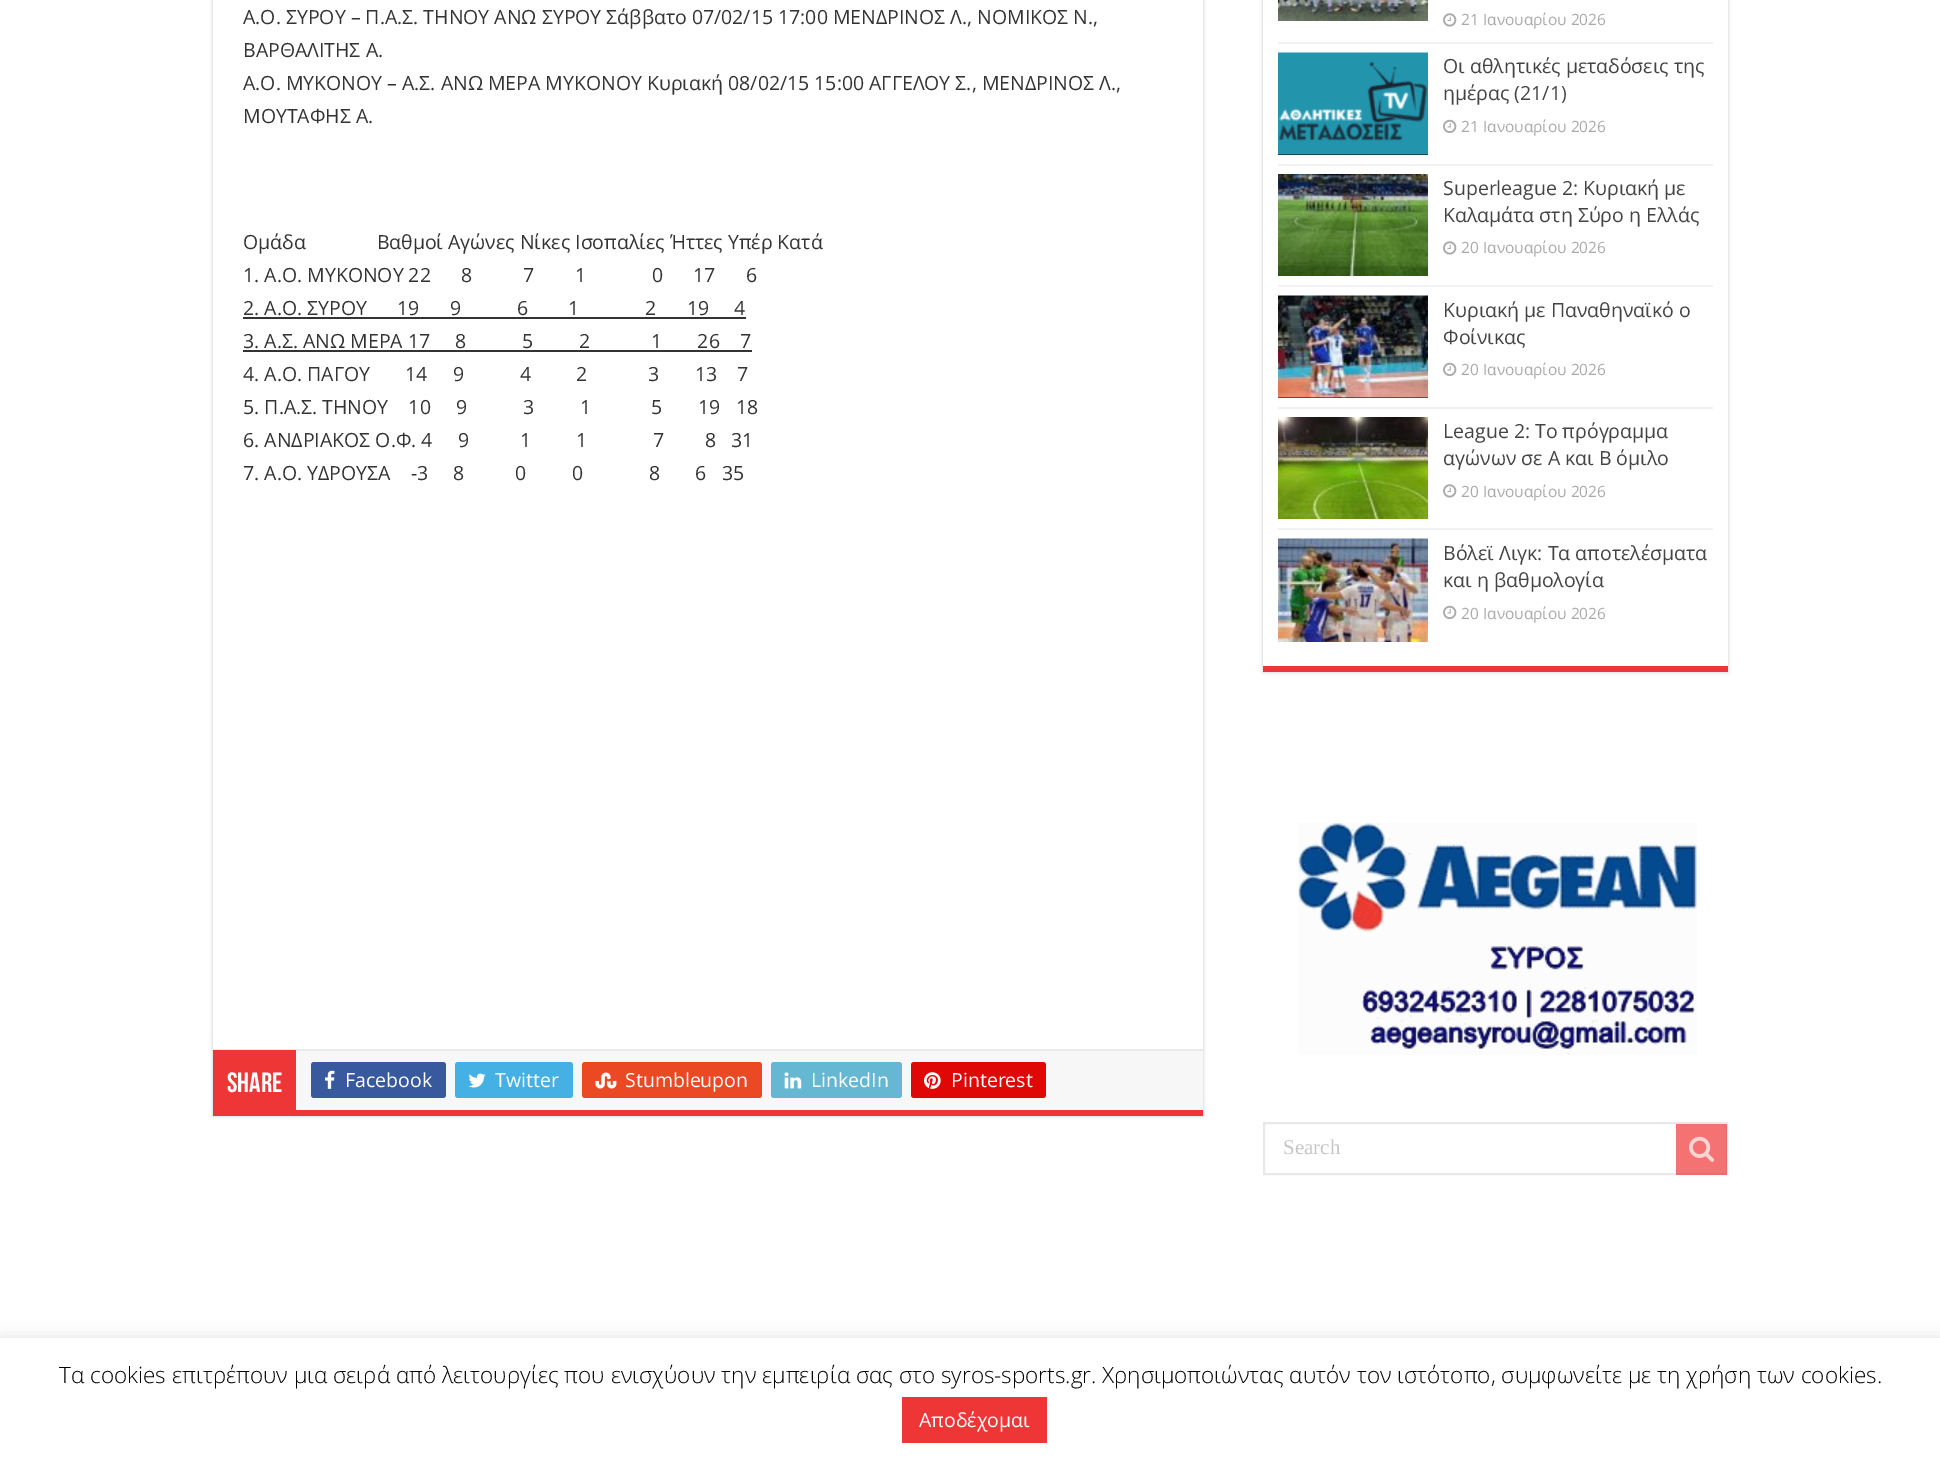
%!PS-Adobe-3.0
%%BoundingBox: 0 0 1940 1460
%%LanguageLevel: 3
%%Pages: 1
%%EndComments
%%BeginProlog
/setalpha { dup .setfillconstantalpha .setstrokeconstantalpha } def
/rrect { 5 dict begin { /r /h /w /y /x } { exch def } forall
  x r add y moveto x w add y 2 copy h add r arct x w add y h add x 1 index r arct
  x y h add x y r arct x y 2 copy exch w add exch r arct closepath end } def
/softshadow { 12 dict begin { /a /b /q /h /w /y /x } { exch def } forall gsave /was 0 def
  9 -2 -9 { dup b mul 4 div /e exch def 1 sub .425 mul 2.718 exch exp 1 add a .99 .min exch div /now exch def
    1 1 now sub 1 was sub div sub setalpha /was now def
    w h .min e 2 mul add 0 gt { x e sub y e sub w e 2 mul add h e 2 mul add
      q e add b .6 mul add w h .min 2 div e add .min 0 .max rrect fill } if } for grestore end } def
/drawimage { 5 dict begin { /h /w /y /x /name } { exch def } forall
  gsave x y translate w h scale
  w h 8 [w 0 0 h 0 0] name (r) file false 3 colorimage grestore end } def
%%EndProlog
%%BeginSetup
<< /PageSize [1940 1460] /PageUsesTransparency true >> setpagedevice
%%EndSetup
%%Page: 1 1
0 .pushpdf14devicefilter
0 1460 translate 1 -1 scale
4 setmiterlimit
1 setgray
0 0 1940 1460 rectfill
gsave
newpath 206 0 moveto 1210 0 lineto 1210 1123 lineto 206 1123 lineto closepath 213 -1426 moveto 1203 -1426 lineto 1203 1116 lineto 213 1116 lineto closepath eoclip newpath
0.792 setgray
213 -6 990 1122 0 2 1 softshadow
grestore
0.937 0.212 0.212 setrgbcolor
213 1110 990 6 rectfill
0.2 setgray
243 317 503 2 rectfill
243 350 509 2 rectfill
0.969 setgray
296 1051 907 59 rectfill
0.918 setgray
213 1049 990 2 rectfill
0.937 0.212 0.212 setrgbcolor
213 1050 83 60 rectfill
0.224 0.349 0.624 setrgbcolor
311 1062 135 36 3 rrect fill
(images/1.raw) 325 1070 10 19 drawimage
0.271 0.69 0.89 setrgbcolor
455 1062 118 36 3 rrect fill
(images/2.raw) 468 1073 18 15 drawimage
0.922 0.286 0.141 setrgbcolor
582 1062 180 36 3 rrect fill
(images/3.raw) 595 1072 22 17 drawimage
0.396 0.718 0.824 setrgbcolor
771 1062 131 36 3 rrect fill
(images/4.raw) 784 1072 18 17 drawimage
0.878 0.027 0.027 setrgbcolor
911 1062 135 36 3 rrect fill
(images/5.raw) 924 1072 17 17 drawimage
gsave
newpath 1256 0 moveto 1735 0 lineto 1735 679 lineto 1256 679 lineto closepath 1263 -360 moveto 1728 -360 lineto 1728 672 lineto 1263 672 lineto closepath eoclip newpath
0.792 setgray
1263 -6 465 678 0 2 1 softshadow
grestore
0.937 0.212 0.212 setrgbcolor
1263 666 465 6 rectfill
0.949 setgray
1278 42 435 2 rectfill
(images/6.raw) 1278 0 150 21 drawimage
(images/7.raw) 1443 13 14 14 drawimage
1278 164 435 2 rectfill
0 setgray
1278 154 150 1 rectfill
(images/8.raw) 1278 52 150 103 drawimage
(images/9.raw) 1443 119 14 15 drawimage
0.949 setgray
1278 285 435 2 rectfill
(images/10.raw) 1278 174 150 102 drawimage
(images/7.raw) 1443 241 14 14 drawimage
1278 407 435 2 rectfill
0 setgray
1278 397 150 1 rectfill
(images/11.raw) 1278 295 150 103 drawimage
(images/9.raw) 1443 362 14 15 drawimage
0.949 setgray
1278 528 435 2 rectfill
(images/12.raw) 1278 417 150 102 drawimage
(images/7.raw) 1443 484 14 14 drawimage
(images/13.raw) 1278 538 150 104 drawimage
(images/9.raw) 1443 605 14 15 drawimage
(images/14.raw) 1298 823 399 232 drawimage
0.91 setgray
2 setlinewidth
1264 1123 463 51 rectstroke
0.7 setalpha
0.937 0.212 0.212 setrgbcolor
1676 1124 51 51 rectfill
1 setalpha
(images/15.raw) 1689 1136 25 26 drawimage
0.675 0.671 0.671 setrgbcolor
0 1337 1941 123 0 7.5 0.3 softshadow
1 setgray
0 1338 1940 122 rectfill
0.937 0.212 0.212 setrgbcolor
902 1397 145 46 rectfill
/OpenSans-Regular [19.5 0 0 -19.5 0 0] selectfont
0.2 setgray
243 24 moveto (Α.Ο. ΣΥΡΟΥ – Π.Α.Σ. ΤΗΝΟΥ ΑΝΩ ΣΥΡΟΥ Σάββατο 07/02/15 17:00 ΜΕΝΔΡΙΝΟΣ Λ., ΝΟΜΙΚΟΣ Ν.,) show
243 57 moveto (ΒΑΡΘΑΛΙΤΗΣ Α.) show
243 90 moveto (Α.Ο. ΜΥΚΟΝΟΥ – Α.Σ. ΑΝΩ ΜΕΡΑ ΜΥΚΟΝΟΥ Κυριακή 08/02/15 15:00 ΑΓΓΕΛΟΥ Σ., ΜΕΝΔΡΙΝΟΣ Λ.,) show
243 123 moveto (ΜΟΥΤΑΦΗΣ Α.) show
243 249 moveto (Ομάδα              Βαθμοί Αγώνες Νίκες Ισοπαλίες Ήττες Υπέρ Κατά) show
243 282 moveto (1. Α.Ο. ΜΥΚΟΝΟΥ 22      8          7        1             0      17      6) show
243 315 moveto (2. Α.Ο. ΣΥΡΟΥ      19      9           6        1             2      19     4) show
243 348 moveto (3. Α.Σ. ΑΝΩ ΜΕΡΑ 17     8           5         2            1       26    7) show
243 381 moveto (4. Α.Ο. ΠΑΓΟΥ       14     9           4         2            3       13    7) show
243 414 moveto (5. Π.Α.Σ. ΤΗΝΟΥ    10     9           3         1            5       19   18) show
243 447 moveto (6. ΑΝΔΡΙΑΚΟΣ Ο.Φ. 4     9          1         1             7        8   31) show
243 480 moveto (7. Α.Ο. ΥΔΡΟΥΣΑ    -3     8          0         0             8       6   35) show
/BebasNeue-Bold [28 0 0 -28 0 0] selectfont
1 setgray
227 1092 moveto (Share) show
/OpenSans-Regular [19.5 0 0 -19.5 0 0] selectfont
345 1087 moveto (Facebook) show
495 1087 moveto (Twitter) show
625 1087 moveto (Stumbleupon) show
811 1087 moveto (LinkedIn) show
951 1087 moveto (Pinterest) show
/OpenSans-Regular [15.5 0 0 -15.5 0 0] selectfont
0.667 setgray
1461 25 moveto (21 Ιανουαρίου 2026) show
/OpenSans-Regular [19.5 0 0 -19.5 0 0] selectfont
0.267 setgray
1443 73 moveto (Οι αθλητικές μεταδόσεις της) show
1443 100 moveto (ημέρας \(21/1\)) show
/OpenSans-Regular [15.5 0 0 -15.5 0 0] selectfont
0.667 setgray
1461 132 moveto (21 Ιανουαρίου 2026) show
/OpenSans-Regular [19.5 0 0 -19.5 0 0] selectfont
0.267 setgray
1443 195 moveto (Superleague 2: Κυριακή με) show
1443 222 moveto (Καλαμάτα στη Σύρο η Ελλάς) show
/OpenSans-Regular [15.5 0 0 -15.5 0 0] selectfont
0.667 setgray
1461 253 moveto (20 Ιανουαρίου 2026) show
/OpenSans-Regular [19.5 0 0 -19.5 0 0] selectfont
0.267 setgray
1443 317 moveto (Κυριακή με Παναθηναϊκό ο) show
1443 344 moveto (Φοίνικας) show
/OpenSans-Regular [15.5 0 0 -15.5 0 0] selectfont
0.667 setgray
1461 375 moveto (20 Ιανουαρίου 2026) show
/OpenSans-Regular [19.5 0 0 -19.5 0 0] selectfont
0.267 setgray
1443 438 moveto (League 2: Το πρόγραμμα) show
1443 465 moveto (αγώνων σε Α και Β όμιλο) show
/OpenSans-Regular [15.5 0 0 -15.5 0 0] selectfont
0.667 setgray
1461 497 moveto (20 Ιανουαρίου 2026) show
/OpenSans-Regular [19.5 0 0 -19.5 0 0] selectfont
0.267 setgray
1443 560 moveto (Βόλεϊ Λιγκ: Τα αποτελέσματα) show
1443 587 moveto (και η βαθμολογία) show
/OpenSans-Regular [15.5 0 0 -15.5 0 0] selectfont
0.667 setgray
1461 619 moveto (20 Ιανουαρίου 2026) show
/LiberationSerif-Regular [21 0 0 -21 0 0] selectfont
0.773 setgray
1283 1154 moveto (Search) show
/OpenSans-Light [22.5 0 0 -22.5 0 0] selectfont
0 setgray
59 1383 moveto (Τα cookies επιτρέπουν μια σειρά από λειτουργίες που ενισχύουν την εμπειρία σας στο syros-sports.gr. Χρησιμοποιώντας αυτόν τον ιστότοπο, συμφωνείτε με τη χρήση των cookies.) show
/OpenSans-Regular [19.5 0 0 -19.5 0 0] selectfont
1 setgray
919 1427 moveto (Αποδέχομαι) show
.poppdf14devicefilter showpage
%%EOF
